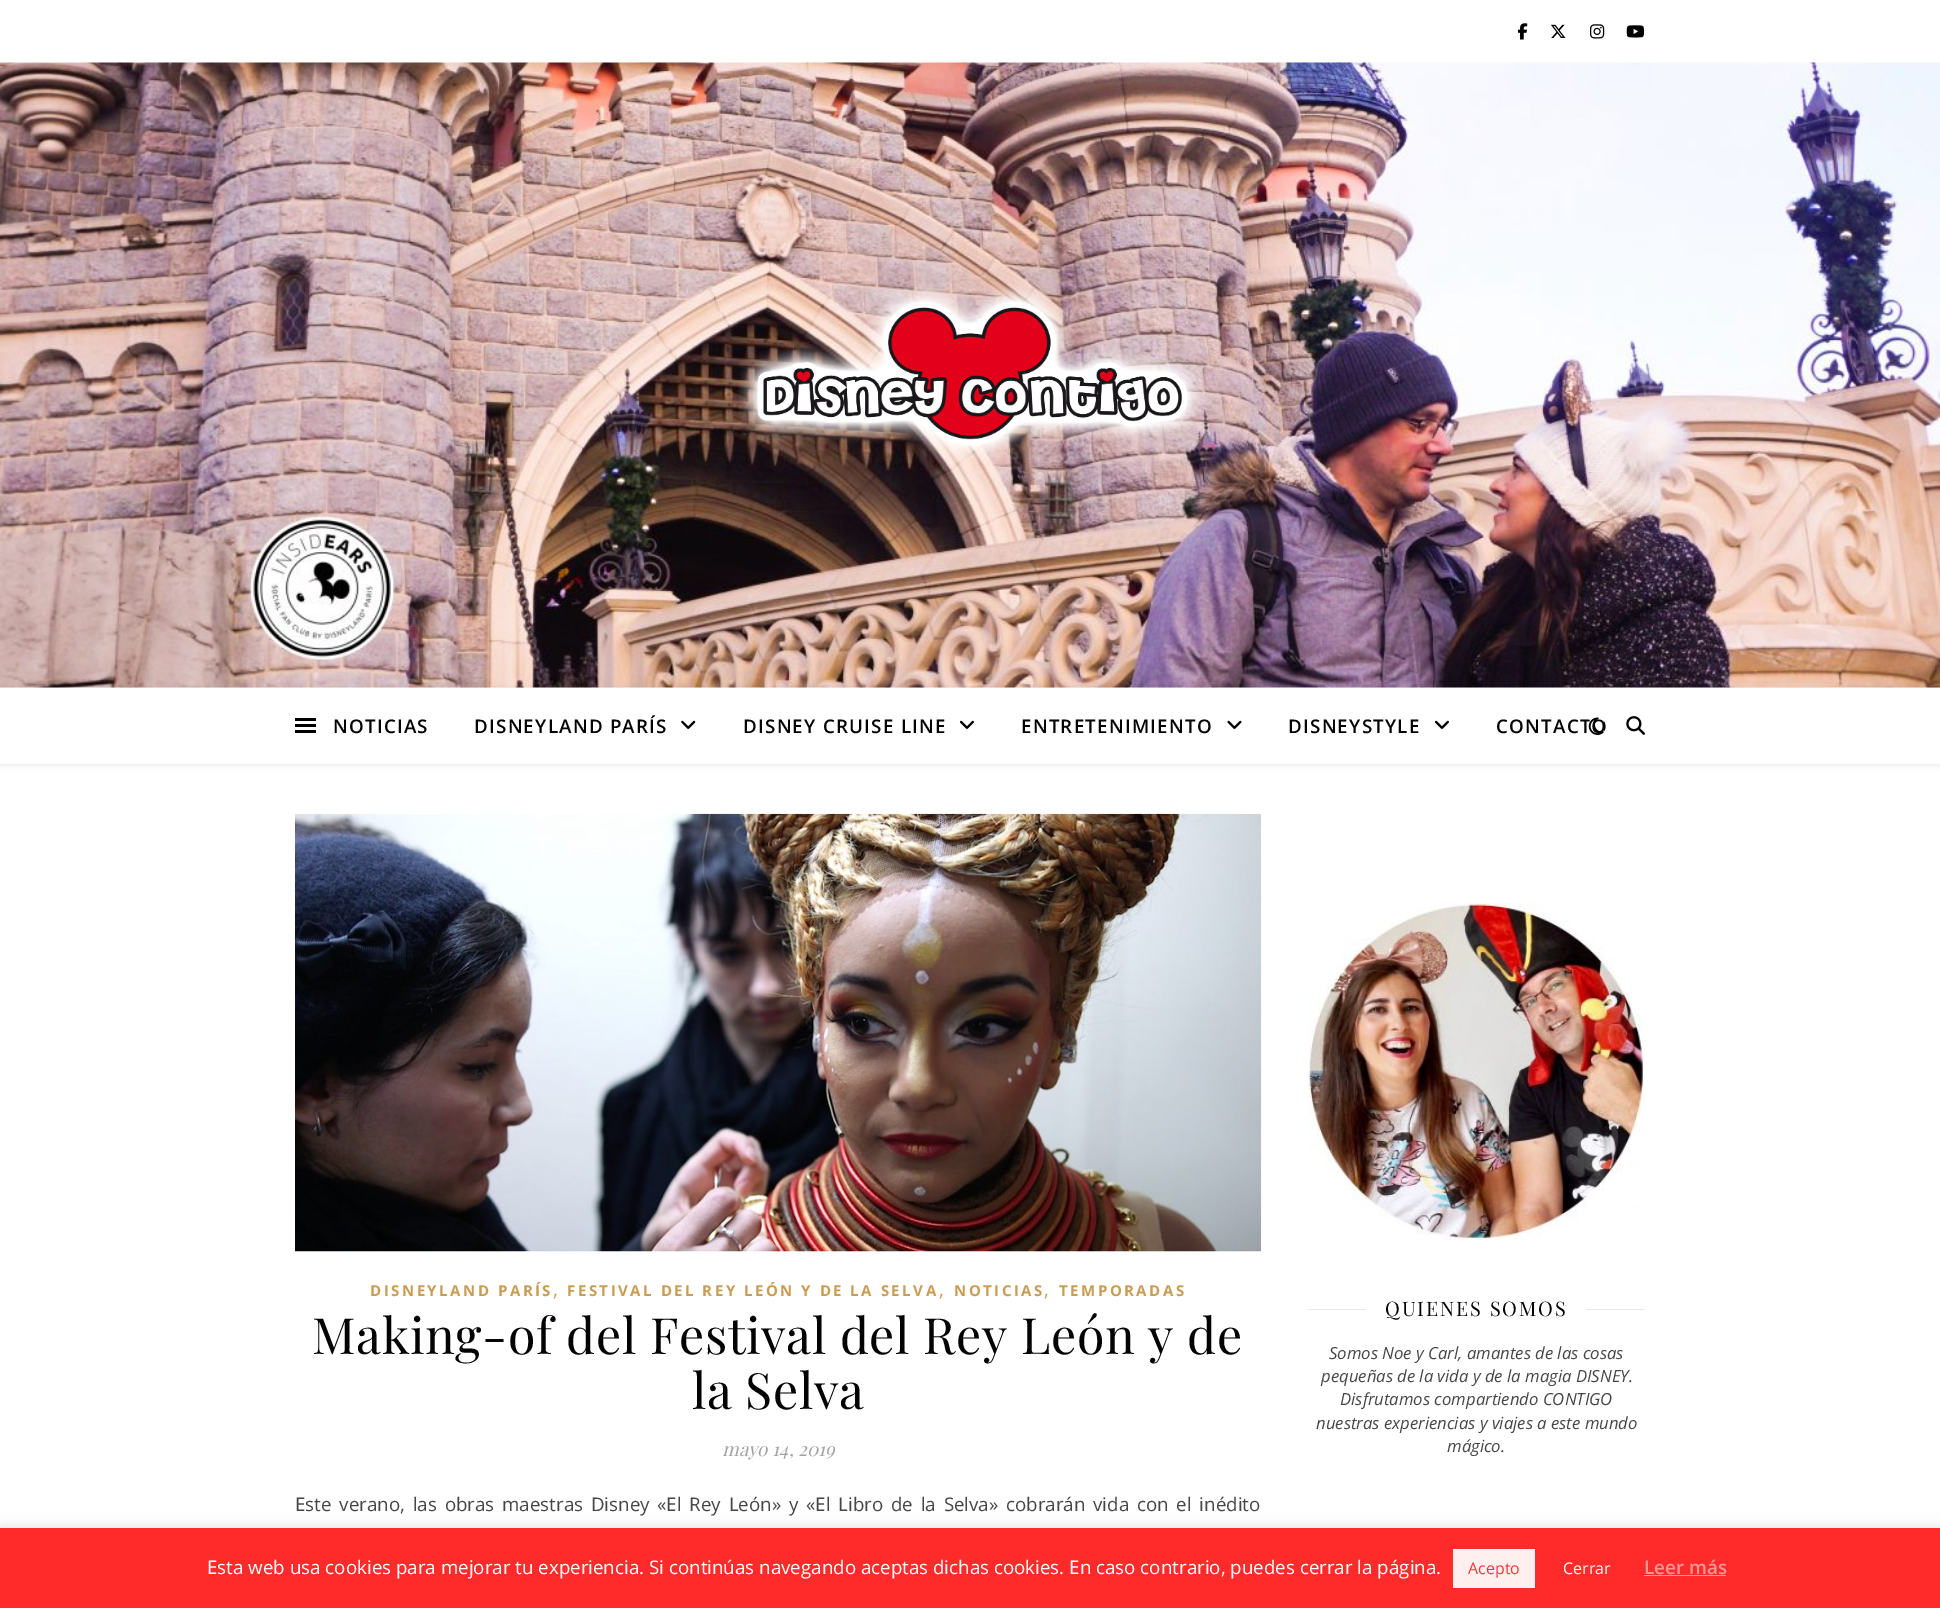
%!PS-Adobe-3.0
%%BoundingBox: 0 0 1940 1608
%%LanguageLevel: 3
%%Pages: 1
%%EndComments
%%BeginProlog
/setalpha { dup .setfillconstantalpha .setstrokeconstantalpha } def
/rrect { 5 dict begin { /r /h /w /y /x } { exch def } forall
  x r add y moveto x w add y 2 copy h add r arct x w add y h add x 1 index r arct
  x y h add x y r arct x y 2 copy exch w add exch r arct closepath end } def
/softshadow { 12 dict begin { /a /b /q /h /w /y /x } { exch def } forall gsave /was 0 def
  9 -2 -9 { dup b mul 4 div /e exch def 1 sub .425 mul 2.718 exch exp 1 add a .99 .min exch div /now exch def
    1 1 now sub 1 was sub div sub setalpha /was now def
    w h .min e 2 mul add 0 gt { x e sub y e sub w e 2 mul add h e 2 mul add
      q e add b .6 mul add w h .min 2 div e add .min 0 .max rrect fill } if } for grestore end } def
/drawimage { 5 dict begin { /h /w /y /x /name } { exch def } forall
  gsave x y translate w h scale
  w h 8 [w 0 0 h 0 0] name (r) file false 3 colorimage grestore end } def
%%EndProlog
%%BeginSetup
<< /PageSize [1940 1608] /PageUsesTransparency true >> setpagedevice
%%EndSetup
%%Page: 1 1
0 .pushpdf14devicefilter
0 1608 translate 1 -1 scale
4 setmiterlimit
1 setgray
0 0 1940 1608 rectfill
(images/1.raw) 1517 23 11 17 drawimage
(images/2.raw) 1551 24 15 14 drawimage
(images/3.raw) 1590 24 15 15 drawimage
(images/4.raw) 1626 25 19 13 drawimage
(images/5.raw) 0 62 1940 626 drawimage
(images/6.raw) 738 284 467 179 drawimage
0 setgray
0 689 1940 76 0 3 0.1 softshadow
1 setgray
0 688 1940 76 rectfill
0 setgray
295 718 21 3 rectfill
295 724 21 3 rectfill
295 730 21 3 rectfill
(images/7.raw) 681 720 15 9 drawimage
(images/8.raw) 960 720 14 9 drawimage
(images/9.raw) 1227 720 15 9 drawimage
(images/8.raw) 1435 720 14 9 drawimage
(images/11.raw) 1626 716 19 19 drawimage
(images/12.raw) 295 813 967 439 drawimage
(images/13.raw) 1308 902 337 338 drawimage
0.91 setgray
1308 1309 58 1 rectfill
1586 1309 59 1 rectfill
0.675 0.671 0.671 setrgbcolor
0 1526 1940 82 0 6 0.3 softshadow
1 0.169 0.169 setrgbcolor
0 1528 1940 80 rectfill
1 0.937 0.937 setrgbcolor
1453 1549 82 39 rectfill
1 0.588 0.588 setrgbcolor
1644 1575 82 1 rectfill
/OpenSans-SemiBold [18.75 0 0 -18.75 0 0] selectfont
0.012 setgray
333 733 moveto 1.25 0 (NOTICIAS) ashow
474 733 moveto 1.25 0 (DISNEYLAND PARÍS) ashow
743 733 moveto 1.25 0 (DISNEY CRUISE LINE) ashow
1021 733 moveto 1.25 0 (ENTRETENIMIENTO) ashow
1288 733 moveto 1.25 0 (DISNEYSTYLE) ashow
1496 733 moveto 1.25 0 (CONTACTO) ashow
(images/10.raw) 1588 717 16 18 drawimage
/OpenSans-Bold [15 0 0 -15 0 0] selectfont
0.792 0.608 0.322 setrgbcolor
370 1296 moveto 2.5 0 (DISNEYLAND PARÍS) ashow
/OpenSans-Regular [18.75 0 0 -18.75 0 0] selectfont
553 1296 moveto (,) show
/OpenSans-Bold [15 0 0 -15 0 0] selectfont
567 1296 moveto 2.5 0 (FESTIVAL DEL REY LEÓN Y DE LA SELVA) ashow
/OpenSans-Regular [18.75 0 0 -18.75 0 0] selectfont
939 1296 moveto (,) show
/OpenSans-Bold [15 0 0 -15 0 0] selectfont
954 1296 moveto 2.5 0 (NOTICIAS) ashow
/OpenSans-Regular [18.75 0 0 -18.75 0 0] selectfont
1044 1296 moveto (,) show
/OpenSans-Bold [15 0 0 -15 0 0] selectfont
1059 1296 moveto 2.5 0 (TEMPORADAS) ashow
/PlayfairDisplay-Regular [50 0 0 -50 0 0] selectfont
0.012 setgray
312 1354 moveto 0.6 0 (Making-of del Festival del Rey León y de) ashow
692 1409 moveto 0.6 0 (la Selva) ashow
/PlayfairDisplay-Italic [18.75 0 0 -18.75 0 0] selectfont
0.631 setgray
722 1456 moveto (mayo 14, 2019) show
/OpenSans-Regular [18.75 0 0 -18.75 0 0] selectfont
0.275 setgray
295 1511 moveto 2.9 0 32 (Este verano, las obras maestras Disney «El Rey León» y «El Libro de la Selva» cobrarán vida con el inédito) widthshow
/PlayfairDisplay-Regular [20 0 0 -20 0 0] selectfont
0.012 setgray
1385 1316 moveto 1.9 0 (QUIENES SOMOS) ashow
/OpenSans-Italic [16.7 0 0 -16.7 0 0] selectfont
0.275 setgray
1329 1359 moveto (Somos Noe y Carl, amantes de las cosas) show
1321 1382 moveto (pequeñas de la vida y de la magia DISNEY.) show
1340 1405 moveto (Disfrutamos compartiendo CONTIGO) show
1316 1429 moveto (nuestras experiencias y viajes a este mundo) show
1447 1452 moveto (mágico.) show
/OpenSans-Regular [18.75 0 0 -18.75 0 0] selectfont
1 setgray
207 1574 moveto (Esta web usa cookies para mejorar tu experiencia. Si continúas navegando aceptas dichas cookies. En caso contrario, puedes cerrar la página.) show
/OpenSans-Regular [16 0 0 -16 0 0] selectfont
1 0.196 0.2 setrgbcolor
1468 1574 moveto (Acepto) show
1 setgray
1563 1574 moveto (Cerrar) show
/OpenSans-SemiBold [18.75 0 0 -18.75 0 0] selectfont
1 0.588 0.588 setrgbcolor
1644 1574 moveto (Leer más) show
.poppdf14devicefilter showpage
%%EOF
